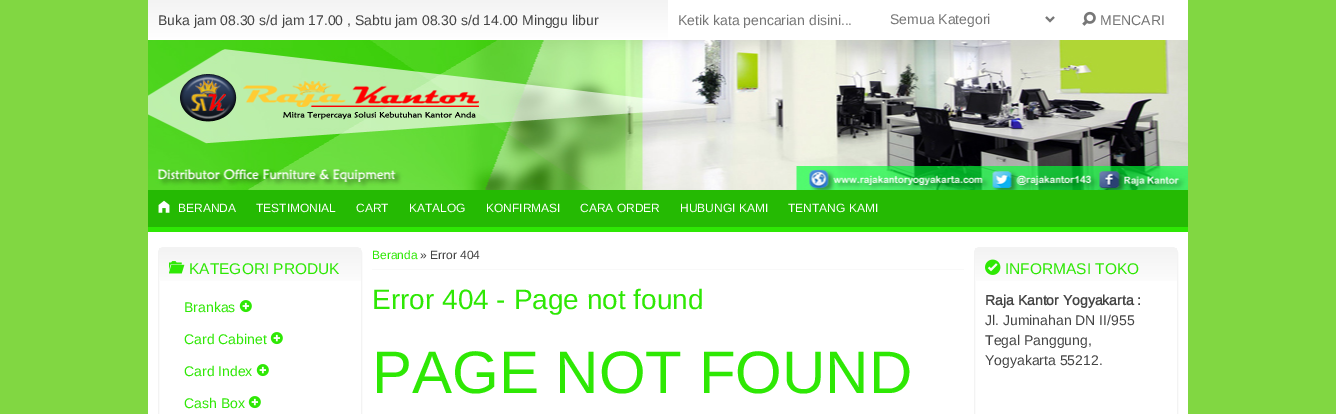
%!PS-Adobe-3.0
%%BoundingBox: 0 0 1336 414
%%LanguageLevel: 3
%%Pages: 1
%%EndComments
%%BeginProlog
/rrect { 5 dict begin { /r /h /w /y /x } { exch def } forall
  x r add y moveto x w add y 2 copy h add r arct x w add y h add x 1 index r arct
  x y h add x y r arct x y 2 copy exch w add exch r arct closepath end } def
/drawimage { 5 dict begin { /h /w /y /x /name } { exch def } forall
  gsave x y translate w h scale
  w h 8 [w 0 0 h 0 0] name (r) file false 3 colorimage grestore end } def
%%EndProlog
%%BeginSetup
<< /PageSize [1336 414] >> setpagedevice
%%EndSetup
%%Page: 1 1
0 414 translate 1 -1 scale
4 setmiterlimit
0.506 0.843 0.259 setrgbcolor
0 0 1336 414 rectfill
gsave newpath 148 0 moveto 668 0 lineto 668 40 lineto 148 40 lineto closepath clip newpath
<< /ShadingType 2 /ColorSpace /DeviceRGB /Coords [668 0 668 40] /Extend [true true] /Function << /FunctionType 2 /Domain [0 1] /C0 [0.953 0.953 0.953] /C1 [1 1 1] /N 1 >> >> shfill grestore
1 setgray
668 0 520 40 rectfill
0.467 setgray
2 setlinewidth
newpath 1046 17 moveto 1050 21 lineto 1054 17 lineto stroke
(images/1.raw) 1082 11 14 15 drawimage
(images/2.raw) 148 40 1040 150 drawimage
(images/3.raw) 180 74 299 48 drawimage
0.18 0.91 0.016 setrgbcolor
148 227 1040 5 rectfill
0.145 0.729 0.012 setrgbcolor
148 190 1040 37 rectfill
(images/4.raw) 158 200 12 13 drawimage
1 setgray
148 232 1040 182 rectfill
0.953 setgray
1 setlinewidth
158.5 247.5 203 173 5.5 rrect stroke
gsave newpath 159 248 moveto 361 248 lineto 361 281 lineto 159 281 lineto closepath clip newpath
<< /ShadingType 2 /ColorSpace /DeviceRGB /Coords [260 248 260 290] /Extend [true true] /Function << /FunctionType 2 /Domain [0 1] /C0 [0.953 0.953 0.953] /C1 [1 1 1] /N 1 >> >> shfill grestore
(images/5.raw) 169 261 16 13 drawimage
(images/6.raw) 239 300 13 13 drawimage
(images/6.raw) 270 332 13 13 drawimage
(images/6.raw) 256 364 13 13 drawimage
(images/6.raw) 248 396 13 13 drawimage
0.976 setgray
372 269 592 1 rectfill
0.953 setgray
974.5 247.5 203 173 5.5 rrect stroke
gsave newpath 975 248 moveto 1177 248 lineto 1177 281 lineto 975 281 lineto closepath clip newpath
<< /ShadingType 2 /ColorSpace /DeviceRGB /Coords [1076 248 1076 290] /Extend [true true] /Function << /FunctionType 2 /Domain [0 1] /C0 [0.953 0.953 0.953] /C1 [1 1 1] /N 1 >> >> shfill grestore
(images/7.raw) 985 259 16 16 drawimage
/Arimo-Regular [14 0 0 -14 0 0] selectfont
0.267 setgray
158 25 moveto (Buka jam 08.30 s/d jam 17.00 , Sabtu jam 08.30 s/d 14.00 Minggu libur) show
0.459 setgray
678 25 moveto (Ketik kata pencarian disini...) show
890 24 moveto (Semua Kategori) show
1100 25 moveto (MENCARI) show
/Arimo-Regular [12 0 0 -12 0 0] selectfont
1 setgray
178 212 moveto (BERANDA) show
256 212 moveto (TESTIMONIAL) show
356 212 moveto (CART) show
409 212 moveto (KATALOG) show
486 212 moveto (KONFIRMASI) show
580 212 moveto (CARA ORDER) show
680 212 moveto (HUBUNGI KAMI) show
788 212 moveto (TENTANG KAMI) show
/Arimo-Regular [15.5 0 0 -15.5 0 0] selectfont
0.18 0.91 0.016 setrgbcolor
189 274 moveto (KATEGORI PRODUK) show
/Arimo-Regular [14 0 0 -14 0 0] selectfont
184 312 moveto (Brankas) show
184 344 moveto (Card Cabinet) show
184 376 moveto (Card Index) show
184 408 moveto (Cash Box) show
/Arimo-Regular [12 0 0 -12 0 0] selectfont
372 259 moveto (Beranda) show
0.267 setgray
420 259 moveto (» Error 404) show
/Arimo-Regular [28 0 0 -28 0 0] selectfont
0.18 0.91 0.016 setrgbcolor
372 309 moveto (Error 404 - Page not found) show
/Arimo-Regular [60 0 0 -60 0 0] selectfont
372 393 moveto (PAGE NOT FOUND) show
/Arimo-Regular [15.5 0 0 -15.5 0 0] selectfont
1005 274 moveto (INFORMASI TOKO) show
/Arimo-Bold [14 0 0 -14 0 0] selectfont
0.267 setgray
985 305 moveto (Raja Kantor Yogyakarta :) show
/Arimo-Regular [14 0 0 -14 0 0] selectfont
985 325 moveto (Jl. Juminahan DN II/955) show
985 345 moveto (Tegal Panggung,) show
985 365 moveto (Yogyakarta 55212.) show
showpage
%%EOF
